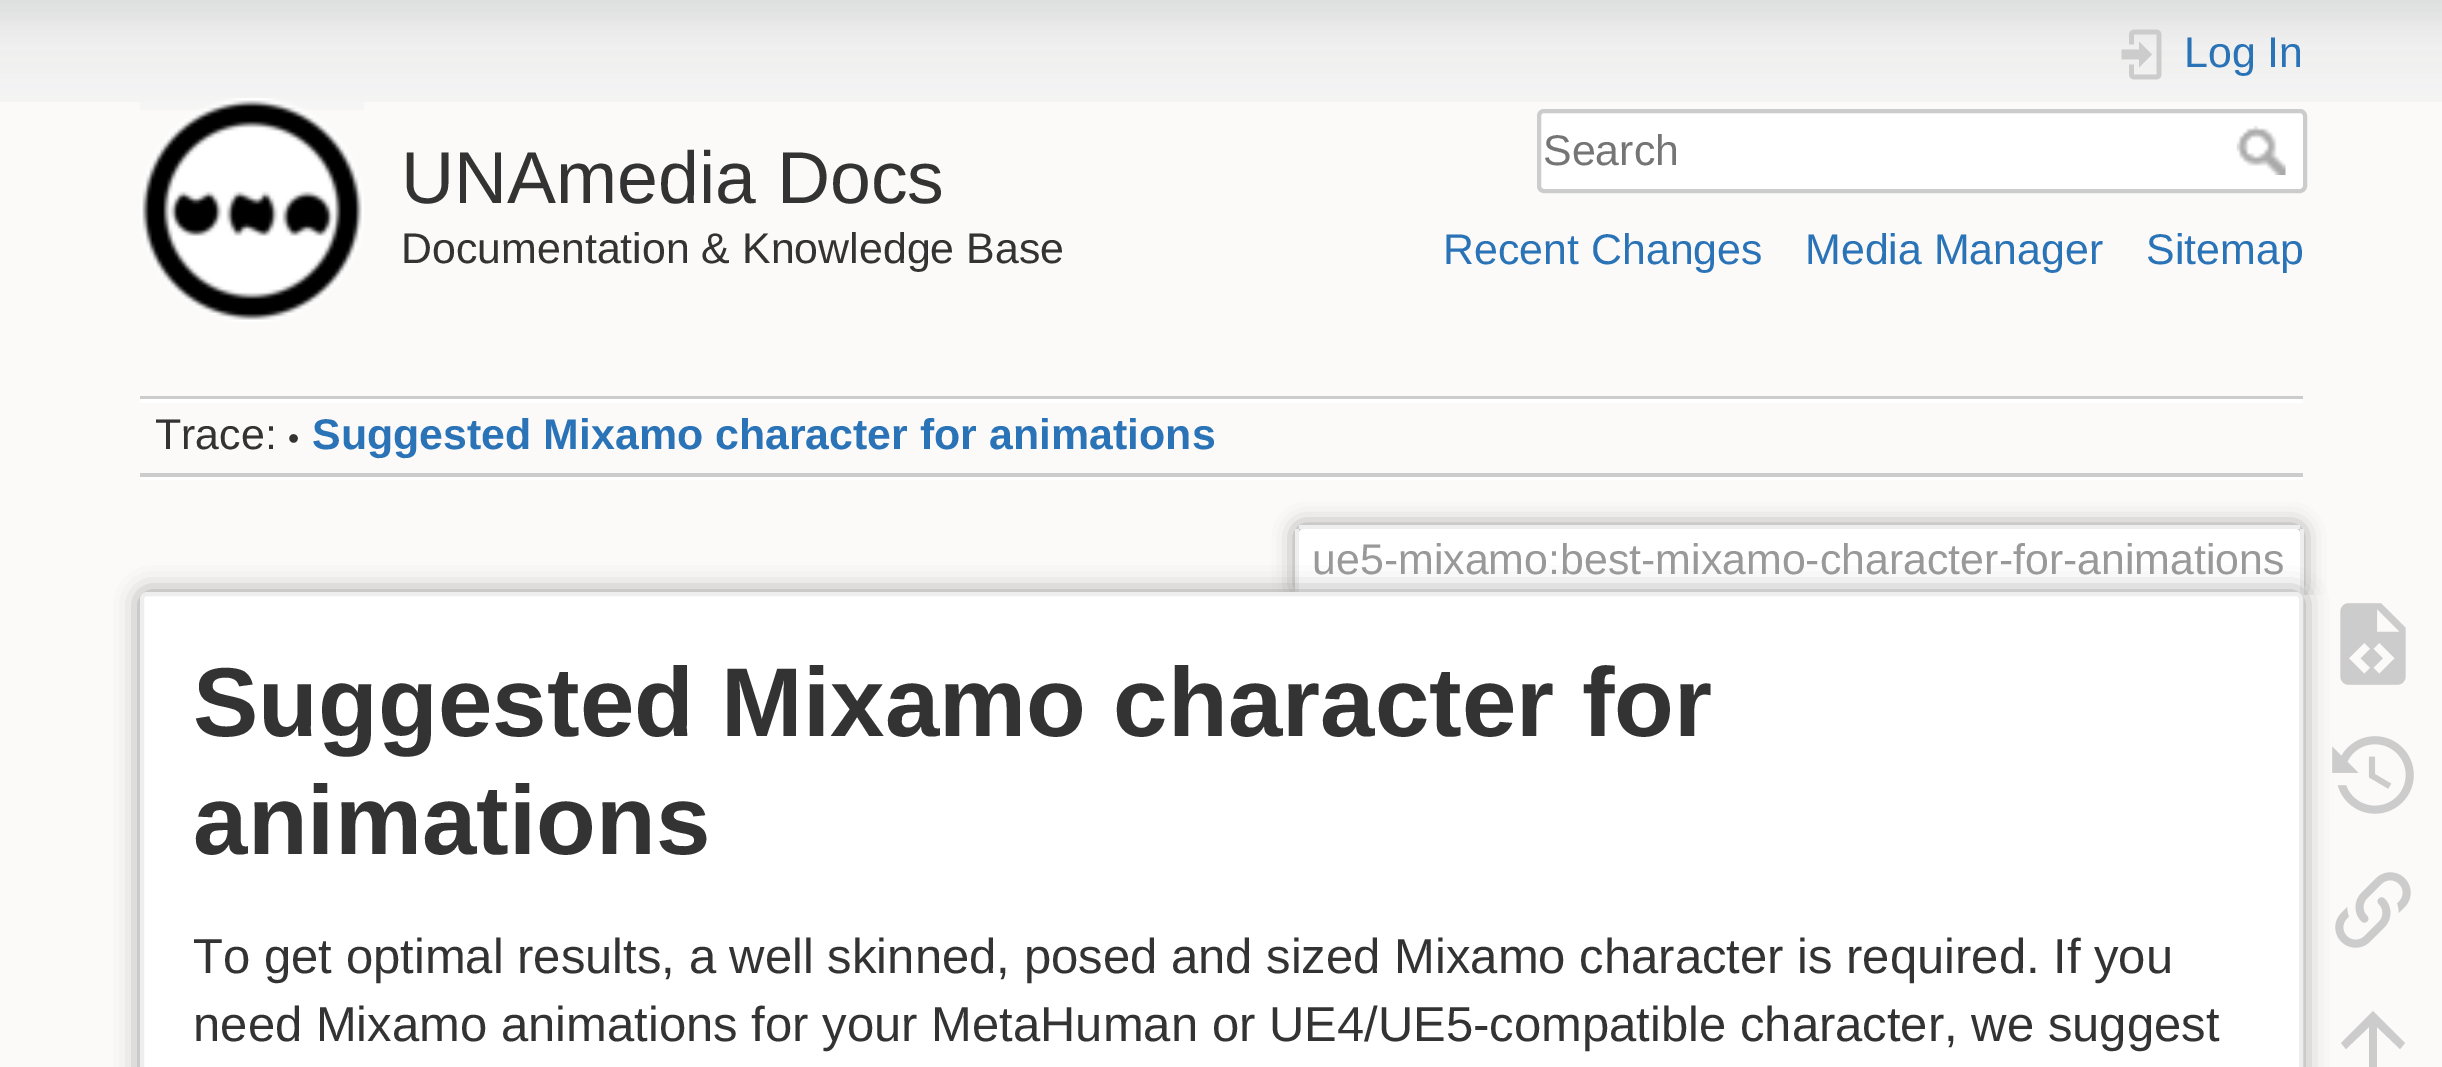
%!PS-Adobe-3.0
%%BoundingBox: 0 0 2442 1067
%%LanguageLevel: 3
%%Pages: 1
%%EndComments
%%BeginProlog
/setalpha { dup .setfillconstantalpha .setstrokeconstantalpha } def
/rrect { 5 dict begin { /r /h /w /y /x } { exch def } forall
  x r add y moveto x w add y 2 copy h add r arct x w add y h add x 1 index r arct
  x y h add x y r arct x y 2 copy exch w add exch r arct closepath end } def
/softshadow { 12 dict begin { /a /b /q /h /w /y /x } { exch def } forall gsave /was 0 def
  9 -2 -9 { dup b mul 4 div /e exch def 1 sub .425 mul 2.718 exch exp 1 add a .99 .min exch div /now exch def
    1 1 now sub 1 was sub div sub setalpha /was now def
    w h .min e 2 mul add 0 gt { x e sub y e sub w e 2 mul add h e 2 mul add
      q e add b .6 mul add w h .min 2 div e add .min 0 .max rrect fill } if } for grestore end } def
/drawimage { 5 dict begin { /h /w /y /x /name } { exch def } forall
  gsave x y translate w h scale
  w h 8 [w 0 0 h 0 0] name (r) file false 3 colorimage grestore end } def
%%EndProlog
%%BeginSetup
<< /PageSize [2442 1067] /PageUsesTransparency true >> setpagedevice
%%EndSetup
%%Page: 1 1
0 .pushpdf14devicefilter
0 1067 translate 1 -1 scale
4 setmiterlimit
0.984 0.98 0.976 setrgbcolor
0 0 2442 1067 rectfill
(images/1.raw) 0 0 2442 102 drawimage
(images/2.raw) 140 98 224 224 drawimage
(images/3.raw) 2121 29 41 51 drawimage
1 setgray
1539 111 766 80 5 rrect gsave fill grestore
0.8 setgray
4 setlinewidth
stroke
(images/4.raw) 2236 126 50 49 drawimage
140 396 2163 3 rectfill
1 setgray
140 477 2163 3 rectfill
140 399 2163 4 rectfill
0.8 setgray
140 473 2163 4 rectfill
gsave
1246 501 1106 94 rectclip
0.6 setgray
1295 525 1008 70 7 10.5 1 softshadow
grestore
1 setgray
newpath 1303 529 moveto 2296 529 lineto 2298 529 2300 531 2300 533 curveto 2300 595 lineto 1299 595 lineto 1299 533 lineto 1299 531 1301 529 1303 529 curveto closepath fill
0.933 setgray
1299 525 1001 4 rectfill
2300 529 4 66 rectfill
1295 529 4 66 rectfill
0.6 setgray
140 592 2163 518 7 12 1 softshadow
1 setgray
142 594 2159 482 5 rrect gsave fill grestore
0.933 setgray
stroke
(images/5.raw) 2340 603 66 82 drawimage
(images/6.raw) 2332 736 82 78 drawimage
(images/7.raw) 2335 872 76 76 drawimage
0.8 setgray
newpath 2377 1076 moveto 2369 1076 lineto 2369 1027 lineto 2346 1049 lineto 2341 1043 lineto 2373 1011 lineto 2405 1043 lineto 2400 1049 lineto 2377 1027 lineto closepath fill
/LiberationSans-Regular [73.5 0 0 -73.5 0 0] selectfont
0.2 setgray
401 203 moveto (UNAmedia Docs) show
/LiberationSans-Regular [42.9 0 0 -42.9 0 0] selectfont
401 263 moveto (Documentation & Knowledge Base) show
0.169 0.451 0.718 setrgbcolor
2184 67 moveto (Log In) show
0.459 setgray
1543 165 moveto (Search) show
0.169 0.451 0.718 setrgbcolor
1443 264 moveto (Recent Changes) show
1805 264 moveto (Media Manager) show
2146 264 moveto (Sitemap) show
0.2 setgray
155 449 moveto (Trace:) show
/LiberationSans-Regular [32 0 0 -32 0 0] selectfont
288 449 moveto (•) show
/LiberationSans-Bold [42.9 0 0 -42.9 0 0] selectfont
0.169 0.451 0.718 setrgbcolor
312 449 moveto (Suggested Mixamo character for animations) show
/LiberationSans-Regular [42.9 0 0 -42.9 0 0] selectfont
0.6 setgray
1312 574 moveto (ue5-mixamo:best-mixamo-character-for-animations) show
/LiberationSans-Bold [98 0 0 -98 0 0] selectfont
0.2 setgray
193 736 moveto (Suggested Mixamo character for) show
193 854 moveto (animations) show
/LiberationSans-Regular [49 0 0 -49 0 0] selectfont
193 973 moveto (To get optimal results, a well skinned, posed and sized Mixamo character is required. If you) show
193 1041 moveto (need Mixamo animations for your MetaHuman or UE4/UE5-compatible character, we suggest) show
.poppdf14devicefilter showpage
%%EOF
